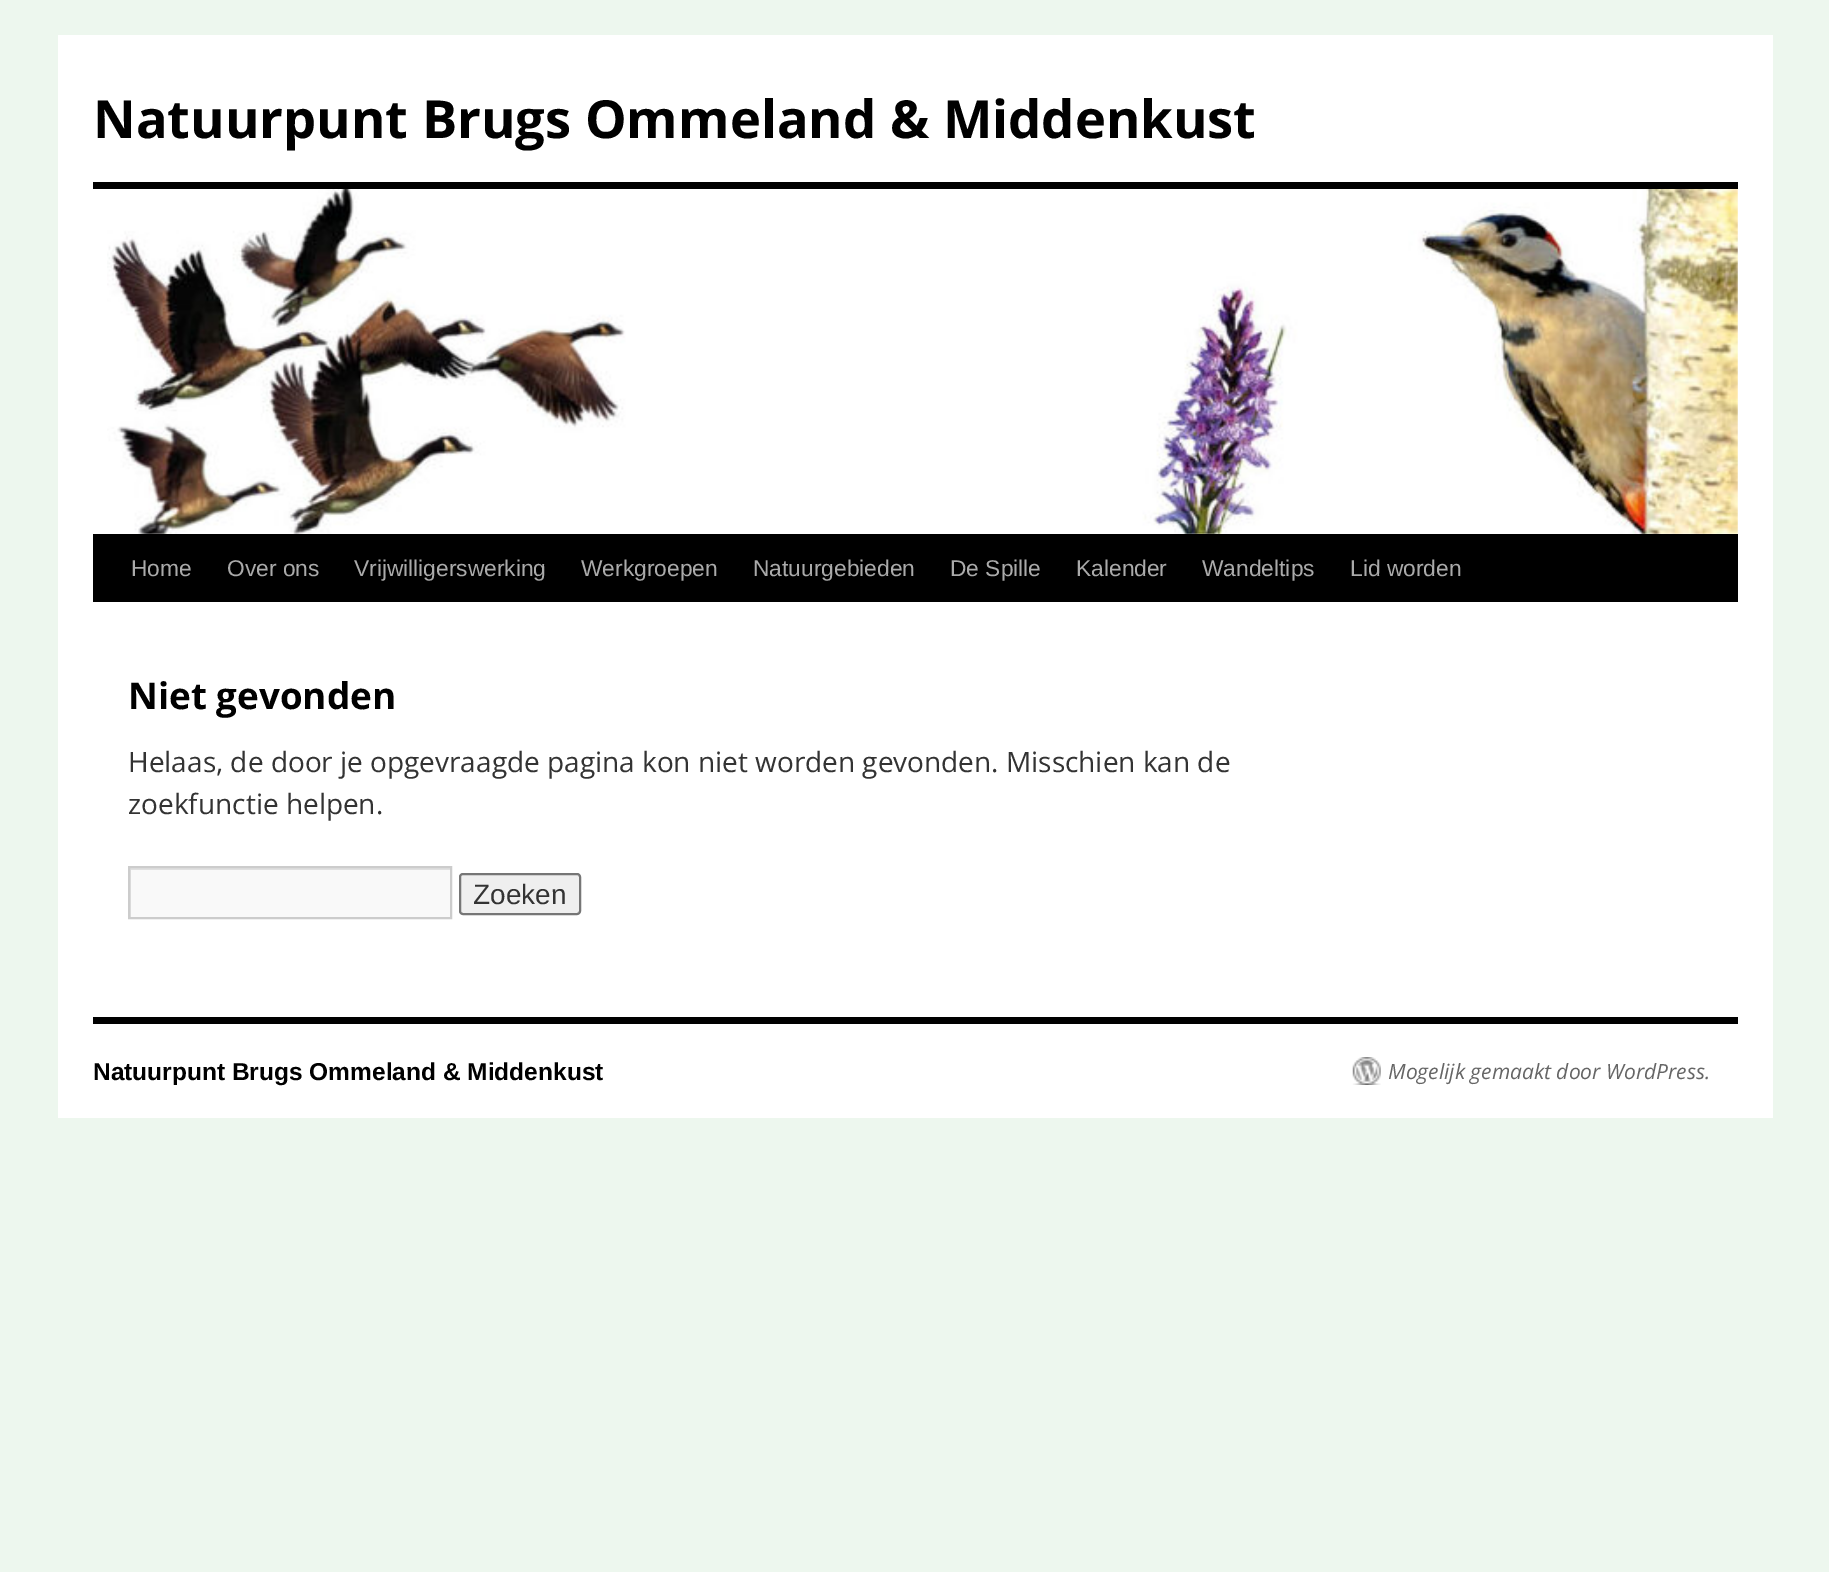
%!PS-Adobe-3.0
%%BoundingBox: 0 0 1829 1572
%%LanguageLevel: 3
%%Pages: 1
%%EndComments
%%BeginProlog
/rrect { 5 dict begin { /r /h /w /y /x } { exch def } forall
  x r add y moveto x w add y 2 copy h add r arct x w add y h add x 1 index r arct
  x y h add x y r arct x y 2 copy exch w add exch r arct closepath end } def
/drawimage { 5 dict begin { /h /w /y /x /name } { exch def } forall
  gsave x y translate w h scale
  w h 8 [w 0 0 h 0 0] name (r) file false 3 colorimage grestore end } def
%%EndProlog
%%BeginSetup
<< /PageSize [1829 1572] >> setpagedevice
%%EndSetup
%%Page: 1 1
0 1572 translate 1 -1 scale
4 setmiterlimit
0.929 0.969 0.933 setrgbcolor
0 0 1829 1572 rectfill
1 setgray
58 35 1715 1083 rectfill
0 setgray
93 182 1645 7 rectfill
93 534 1645 68 rectfill
(images/1.raw) 107 189 1631 345 drawimage
0.976 setgray
131 870 319 47 rectfill
gsave
130 868 320 49 rectclip
0.878 setgray
newpath -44 695 moveto 623 695 lineto 623 1090 lineto -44 1090 lineto closepath 131 870 moveto 452 870 lineto 452 919 lineto 131 919 lineto closepath eofill
grestore
0.8 setgray
2 setlinewidth
129 867 322 51 rectstroke
0.937 setgray
460 874 120 40 3 rrect gsave fill grestore
0.463 setgray
stroke
0 setgray
93 1017 1645 7 rectfill
(images/2.raw) 1352 1057 29 28 drawimage
/OpenSans-Bold [52.5 0 0 -52.5 0 0] selectfont
93 138 moveto (Natuurpunt Brugs Ommeland & Middenkust) show
/LiberationSans-Regular [22.75 0 0 -22.75 0 0] selectfont
0.667 setgray
131 576 moveto (Home) show
227 576 moveto (Over ons) show
354 576 moveto (Vrijwilligerswerking) show
581 576 moveto (Werkgroepen) show
753 576 moveto (Natuurgebieden) show
950 576 moveto (De Spille) show
1076 576 moveto (Kalender) show
1202 576 moveto (Wandeltips) show
1350 576 moveto (Lid worden) show
/OpenSans-Bold [36.75 0 0 -36.75 0 0] selectfont
0 setgray
128 709 moveto (Niet gevonden) show
/OpenSans-Regular [28 0 0 -28 0 0] selectfont
0.2 setgray
128 772 moveto (Helaas, de door je opgevraagde pagina kon niet worden gevonden. Misschien kan de) show
128 814 moveto (zoekfunctie helpen.) show
/LiberationSans-Regular [28 0 0 -28 0 0] selectfont
473 904 moveto (Zoeken) show
/LiberationSans-Bold [24.5 0 0 -24.5 0 0] selectfont
0 setgray
93 1080 moveto (Natuurpunt Brugs Ommeland & Middenkust) show
/OpenSans-Italic [21 0 0 -21 0 0] selectfont
0.4 setgray
1388 1079 moveto (Mogelijk gemaakt door WordPress.) show
showpage
%%EOF
